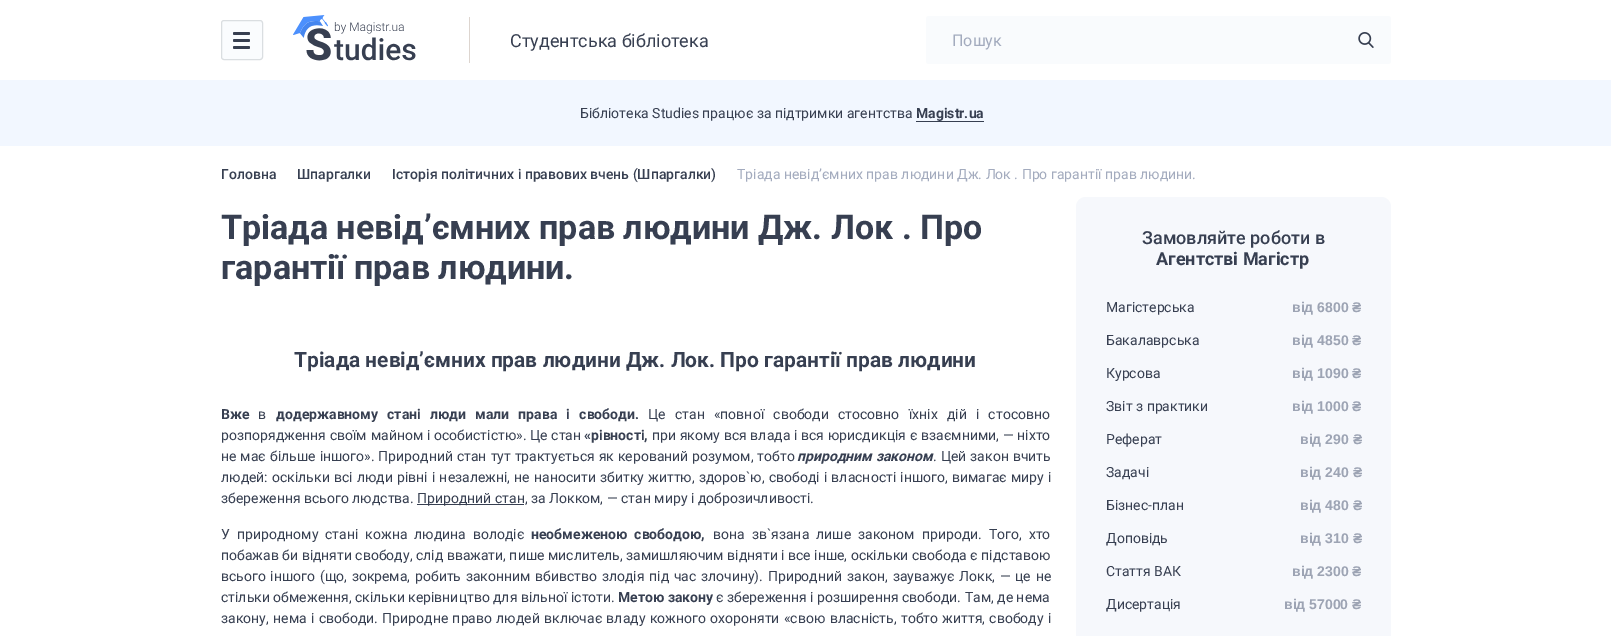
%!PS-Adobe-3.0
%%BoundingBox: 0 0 1611 636
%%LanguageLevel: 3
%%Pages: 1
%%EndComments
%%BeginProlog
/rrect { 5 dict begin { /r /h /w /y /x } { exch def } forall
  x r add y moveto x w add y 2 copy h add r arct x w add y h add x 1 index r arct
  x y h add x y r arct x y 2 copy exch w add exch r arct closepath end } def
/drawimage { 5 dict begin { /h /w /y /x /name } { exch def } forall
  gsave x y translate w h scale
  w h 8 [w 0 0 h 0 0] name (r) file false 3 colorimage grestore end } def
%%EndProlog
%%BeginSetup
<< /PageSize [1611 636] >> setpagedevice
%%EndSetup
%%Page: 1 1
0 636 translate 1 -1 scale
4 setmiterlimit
1 setgray
0 0 1611 636 rectfill
0.98 0.988 0.996 setrgbcolor
221.5 20.5 41 39 2.5 rrect gsave fill grestore
0.855 0.871 0.882 setrgbcolor
stroke
0.216 0.247 0.314 setrgbcolor
233 32 17 3 1.5 rrect fill
233 39 17 3 1.5 rrect fill
233 46 17 3 1.5 rrect fill
(images/1.raw) 293 15 123 46 drawimage
0.867 0.835 0.812 setrgbcolor
469 17 1 46 rectfill
0.976 0.984 0.992 setrgbcolor
926 16 465 48 3 rrect fill
(images/2.raw) 1358 32 16 16 drawimage
0.949 0.969 1 setrgbcolor
0 80 1611 66 rectfill
0.216 0.247 0.318 setrgbcolor
916 121 68 1 rectfill
417 504 107 1 rectfill
0.965 0.973 0.988 setrgbcolor
1076 197 315 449 10 rrect fill
/Roboto-Regular [18 0 0 -18 0 0] selectfont
0.216 0.247 0.318 setrgbcolor
510 47 moveto (Студентська бібліотека) show
/Roboto-Regular [16 0 0 -16 0 0] selectfont
0.639 0.671 0.745 setrgbcolor
952 46 moveto (Пошук) show
/Roboto-Regular [14 0 0 -14 0 0] selectfont
0.216 0.247 0.318 setrgbcolor
580 118 moveto (Бібліотека Studies працює за підтримки агентства) show
/Roboto-Bold [14 0 0 -14 0 0] selectfont
916 118 moveto (Magistr.ua) show
/Roboto-Medium [14 0 0 -14 0 0] selectfont
221 179 moveto (Головна) show
297 179 moveto (Шпаргалки) show
392 179 moveto (Історія політичних і правових вчень \(Шпаргалки\)) show
/Roboto-Regular [14 0 0 -14 0 0] selectfont
0.639 0.671 0.745 setrgbcolor
737 179 moveto (Тріада невід’ємних прав людини Дж. Лок . Про гарантії прав людини.) show
/Roboto-Bold [34 0 0 -34 0 0] selectfont
0.216 0.247 0.318 setrgbcolor
221 239 moveto (Тріада невід’ємних прав людини Дж. Лок . Про) show
221 279 moveto (гарантії прав людини.) show
/Roboto-Bold [21 0 0 -21 0 0] selectfont
294 367 moveto (Тріада невід’ємних прав людини Дж. Лок. Про гарантії прав людини) show
/Roboto-Bold [14 0 0 -14 0 0] selectfont
221 419 moveto (Вже) show
/Roboto-Regular [14 0 0 -14 0 0] selectfont
258 419 moveto (в) show
/Roboto-Bold [14 0 0 -14 0 0] selectfont
276 419 moveto 5.75 0 32 (додержавному стані люди мали права і свободи.) widthshow
/Roboto-Regular [14 0 0 -14 0 0] selectfont
648 419 moveto 5.75 0 32 (Це стан «повної свободи стосовно їхніх дій і стосовно) widthshow
221 440 moveto 0.25 0 32 (розпорядження своїм майном і особистістю». Це стан) widthshow
/Roboto-Bold [14 0 0 -14 0 0] selectfont
584 440 moveto («рівності,) show
/Roboto-Regular [14 0 0 -14 0 0] selectfont
652 440 moveto 0.25 0 32 (при якому вся влада і вся юрисдикція є взаємними, — ніхто) widthshow
221 461 moveto 0.5 0 32 (не має більше іншого». Природний стан тут трактується як керований розумом, тобто) widthshow
/Roboto-BoldItalic [14 0 0 -14 0 0] selectfont
797 461 moveto 0.5 0 32 (природним законом) widthshow
/Roboto-Regular [14 0 0 -14 0 0] selectfont
933 461 moveto 0.5 0 32 (. Цей закон вчить) widthshow
221 482 moveto 0.7 0 32 (людей: оскільки всі люди рівні і незалежні, не наносити збитку життю, здоров`ю, свободі і власності іншого, вимагає миру і) widthshow
221 503 moveto (збереження всього людства.) show
417 503 moveto (Природний стан, за Локком, — стан миру і доброзичливості.) show
221 539 moveto 3.5 0 32 (У природному стані кожна людина володіє) widthshow
/Roboto-Bold [14 0 0 -14 0 0] selectfont
531 539 moveto 3.5 0 32 (необмеженою свободою,) widthshow
/Roboto-Regular [14 0 0 -14 0 0] selectfont
713 539 moveto 3.5 0 32 (вона зв`язана лише законом природи. Того, хто) widthshow
221 560 moveto (побажав би відняти свободу, слід вважати, пише мислитель, замишляючим відняти і все інше, оскільки свобода є підставою) show
221 581 moveto 1.2 0 32 (всього іншого \(що, зокрема, робить законним вбивство злодія під час злочину\). Природний закон, зауважує Локк, — це не) widthshow
221 602 moveto (стільки обмеження, скільки керівництво для вільної істоти.) show
/Roboto-Bold [14 0 0 -14 0 0] selectfont
618 602 moveto (Метою закону) show
/Roboto-Regular [14 0 0 -14 0 0] selectfont
716 602 moveto (є збереження і розширення свободи. Там, де нема) show
221 623 moveto 0.9 0 32 (закону, нема і свободи. Природне право людей включає владу кожного охороняти «свою власність, тобто життя, свободу і) widthshow
/Roboto-Medium [18 0 0 -18 0 0] selectfont
1142 244 moveto (Замовляйте роботи в) show
/Roboto-Bold [18 0 0 -18 0 0] selectfont
1156 265 moveto (Агентстві Магістр) show
/Roboto-Regular [14 0 0 -14 0 0] selectfont
1106 312 moveto (Магістерська) show
/LiberationSans-Bold [14 0 0 -14 0 0] selectfont
0.616 0.643 0.706 setrgbcolor
1292 312 moveto (від 6800 ₴) show
/Roboto-Regular [14 0 0 -14 0 0] selectfont
0.216 0.247 0.318 setrgbcolor
1106 345 moveto (Бакалаврська) show
/LiberationSans-Bold [14 0 0 -14 0 0] selectfont
0.616 0.643 0.706 setrgbcolor
1292 345 moveto (від 4850 ₴) show
/Roboto-Regular [14 0 0 -14 0 0] selectfont
0.216 0.247 0.318 setrgbcolor
1106 378 moveto (Курсова) show
/LiberationSans-Bold [14 0 0 -14 0 0] selectfont
0.616 0.643 0.706 setrgbcolor
1292 378 moveto (від 1090 ₴) show
/Roboto-Regular [14 0 0 -14 0 0] selectfont
0.216 0.247 0.318 setrgbcolor
1106 411 moveto (Звіт з практики) show
/LiberationSans-Bold [14 0 0 -14 0 0] selectfont
0.616 0.643 0.706 setrgbcolor
1292 411 moveto (від 1000 ₴) show
/Roboto-Regular [14 0 0 -14 0 0] selectfont
0.216 0.247 0.318 setrgbcolor
1106 444 moveto (Реферат) show
/LiberationSans-Bold [14 0 0 -14 0 0] selectfont
0.616 0.643 0.706 setrgbcolor
1300 444 moveto (від 290 ₴) show
/Roboto-Regular [14 0 0 -14 0 0] selectfont
0.216 0.247 0.318 setrgbcolor
1106 477 moveto (Задачі) show
/LiberationSans-Bold [14 0 0 -14 0 0] selectfont
0.616 0.643 0.706 setrgbcolor
1300 477 moveto (від 240 ₴) show
/Roboto-Regular [14 0 0 -14 0 0] selectfont
0.216 0.247 0.318 setrgbcolor
1106 510 moveto (Бізнес-план) show
/LiberationSans-Bold [14 0 0 -14 0 0] selectfont
0.616 0.643 0.706 setrgbcolor
1300 510 moveto (від 480 ₴) show
/Roboto-Regular [14 0 0 -14 0 0] selectfont
0.216 0.247 0.318 setrgbcolor
1106 543 moveto (Доповідь) show
/LiberationSans-Bold [14 0 0 -14 0 0] selectfont
0.616 0.643 0.706 setrgbcolor
1300 543 moveto (від 310 ₴) show
/Roboto-Regular [14 0 0 -14 0 0] selectfont
0.216 0.247 0.318 setrgbcolor
1106 576 moveto (Стаття ВАК) show
/LiberationSans-Bold [14 0 0 -14 0 0] selectfont
0.616 0.643 0.706 setrgbcolor
1292 576 moveto (від 2300 ₴) show
/Roboto-Regular [14 0 0 -14 0 0] selectfont
0.216 0.247 0.318 setrgbcolor
1106 609 moveto (Дисертація) show
/LiberationSans-Bold [14 0 0 -14 0 0] selectfont
0.616 0.643 0.706 setrgbcolor
1284 609 moveto (від 57000 ₴) show
showpage
%%EOF
